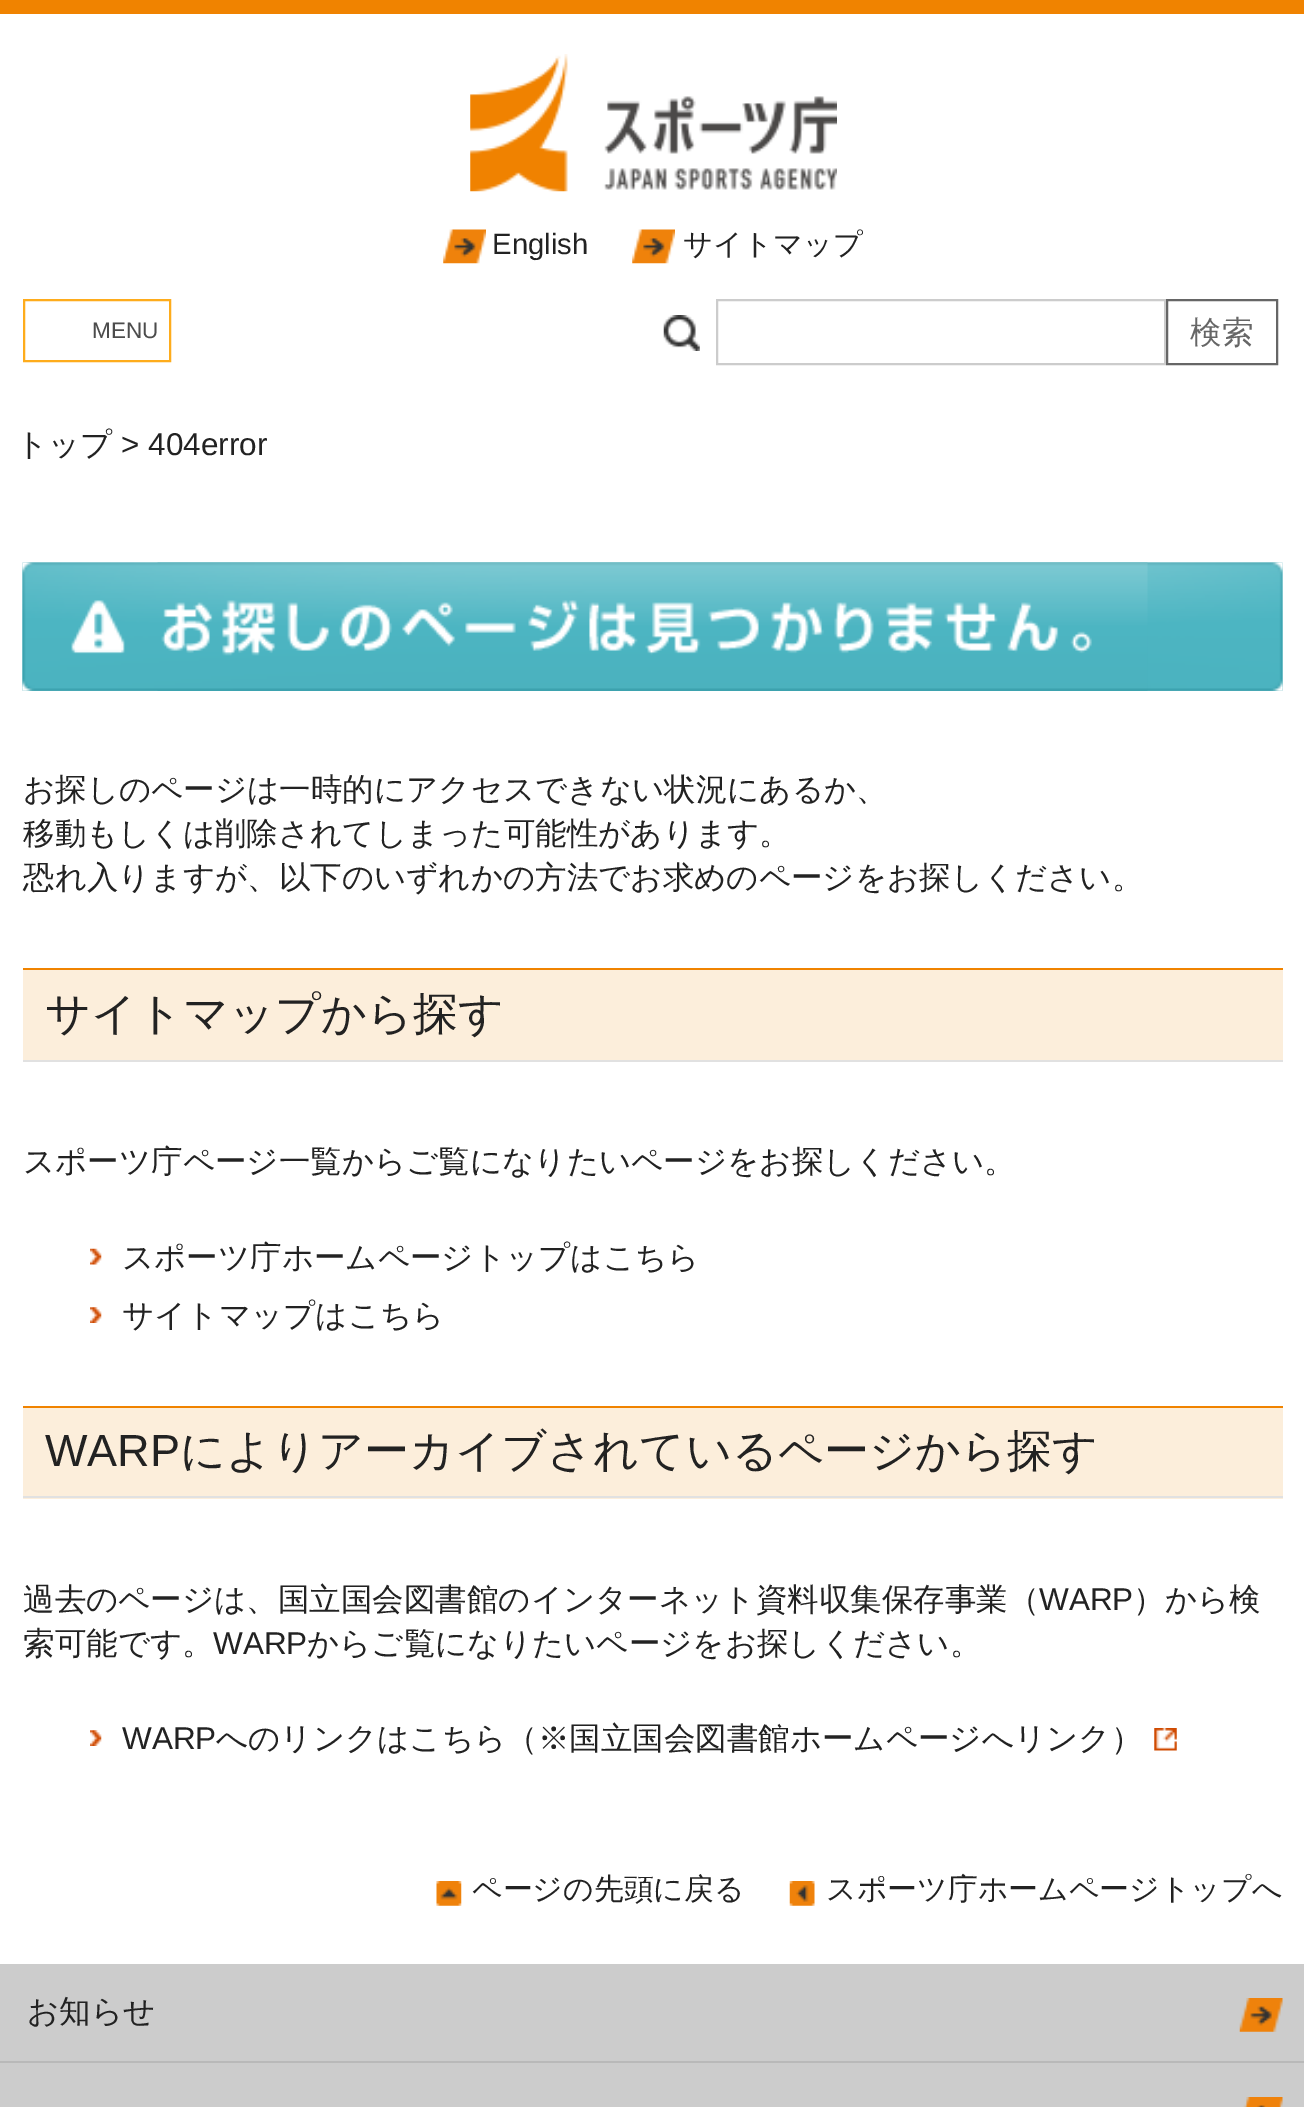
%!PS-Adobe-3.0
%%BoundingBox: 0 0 1304 2107
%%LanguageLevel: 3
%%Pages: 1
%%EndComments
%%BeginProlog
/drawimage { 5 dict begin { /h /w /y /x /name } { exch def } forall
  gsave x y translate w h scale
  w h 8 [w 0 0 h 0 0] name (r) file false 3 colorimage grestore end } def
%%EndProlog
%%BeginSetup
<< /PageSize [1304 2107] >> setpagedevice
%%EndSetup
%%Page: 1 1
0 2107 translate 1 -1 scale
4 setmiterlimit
1 setgray
0 0 1304 2107 rectfill
0.941 0.514 0 setrgbcolor
0 0 1304 14 rectfill
(images/1.raw) 470 54 367 138 drawimage
(images/2.raw) 443 229 43 35 drawimage
(images/3.raw) 632 229 43 35 drawimage
0.996 0.675 0.11 setrgbcolor
2 setlinewidth
24 300 146 61 rectstroke
(images/4.raw) 663 315 37 36 drawimage
0.8 setgray
717 300 448 64 rectstroke
0.4 setgray
1167 300 110 64 rectstroke
(images/5.raw) 22 562 1261 129 drawimage
(images/6.raw) 157 562 1126 129 drawimage
(images/7.raw) 22 562 1126 129 drawimage
0.988 0.933 0.859 setrgbcolor
23 970 1260 90 rectfill
0.941 0.514 0 setrgbcolor
23 968 1260 2 rectfill
0.882 setgray
23 1060 1260 2 rectfill
(images/8.raw) 90 1248 12 17 drawimage
(images/9.raw) 90 1307 12 16 drawimage
0.988 0.933 0.859 setrgbcolor
23 1408 1260 91 rectfill
0.941 0.514 0 setrgbcolor
23 1406 1260 2 rectfill
0.882 setgray
23 1496 1260 2 rectfill
(images/9.raw) 90 1730 12 16 drawimage
(images/10.raw) 1154 1728 23 23 drawimage
(images/11.raw) 436 1881 26 25 drawimage
(images/12.raw) 789 1881 26 25 drawimage
0.8 setgray
0 1964 1304 97 rectfill
(images/13.raw) 1239 1998 44 34 drawimage
0.725 setgray
0 2061 1304 2 rectfill
0.8 setgray
0 2063 1304 44 rectfill
(images/14.raw) 1243 2097 40 10 drawimage
/LiberationSans-Regular [29.25 0 0 -29.25 0 0] selectfont
0.133 setgray
492 254 moveto (English) show
/WenQuanYiZenHei-Medium [29.25 0 0 -29.25 0 0] selectfont
683 254 moveto (サイトマップ) show
/LiberationSans-Regular [22.5 0 0 -22.5 0 0] selectfont
0.298 setgray
92 338 moveto (MENU) show
/WenQuanYiZenHei-Medium [31.5 0 0 -31.5 0 0] selectfont
0.4 setgray
1190 343 moveto (検索) show
0.133 setgray
16 455 moveto (トップ) show
/LiberationSans-Regular [31.5 0 0 -31.5 0 0] selectfont
121 455 moveto (> 404error) show
/WenQuanYiZenHei-Medium [31.5 0 0 -31.5 0 0] selectfont
23 800 moveto (お探しのページは一時的にアクセスできない状況にあるか、) show
23 844 moveto (移動もしくは削除されてしまった可能性があります。) show
23 888 moveto (恐れ入りますが、以下のいずれかの方法でお求めのページをお探しください。) show
/WenQuanYiZenHei-Medium [45 0 0 -45 0 0] selectfont
45 1029 moveto (サイトマップから探す) show
/WenQuanYiZenHei-Medium [31.5 0 0 -31.5 0 0] selectfont
23 1172 moveto (スポーツ庁ページ一覧からご覧になりたいページをお探しください。) show
122 1268 moveto (スポーツ庁ホームページトップはこちら) show
122 1326 moveto (サイトマップはこちら) show
/LiberationSans-Regular [45 0 0 -45 0 0] selectfont
45 1466 moveto (WARP) show
/WenQuanYiZenHei-Medium [45 0 0 -45 0 0] selectfont
180 1466 moveto (によりアーカイブされているページから探す) show
/WenQuanYiZenHei-Medium [31.5 0 0 -31.5 0 0] selectfont
23 1610 moveto (過去のページは、国立国会図書館のインターネット資料収集保存事業（) show
/LiberationSans-Regular [31.5 0 0 -31.5 0 0] selectfont
1039 1610 moveto (WARP) show
/WenQuanYiZenHei-Medium [31.5 0 0 -31.5 0 0] selectfont
1133 1610 moveto (）から検) show
23 1654 moveto (索可能です。) show
/LiberationSans-Regular [31.5 0 0 -31.5 0 0] selectfont
213 1654 moveto (WARP) show
/WenQuanYiZenHei-Medium [31.5 0 0 -31.5 0 0] selectfont
307 1654 moveto (からご覧になりたいページをお探しください。) show
/LiberationSans-Regular [31.5 0 0 -31.5 0 0] selectfont
122 1749 moveto (WARP) show
/WenQuanYiZenHei-Medium [31.5 0 0 -31.5 0 0] selectfont
216 1749 moveto (へのリンクはこちら（※国立国会図書館ホームページへリンク）) show
/WenQuanYiZenHei-Medium [29.9 0 0 -29.9 0 0] selectfont
472 1899 moveto (ページの先頭に戻る) show
826 1899 moveto (スポーツ庁ホームページトップへ) show
/WenQuanYiZenHei-Medium [31.5 0 0 -31.5 0 0] selectfont
27 2022 moveto (お知らせ) show
showpage
%%EOF
